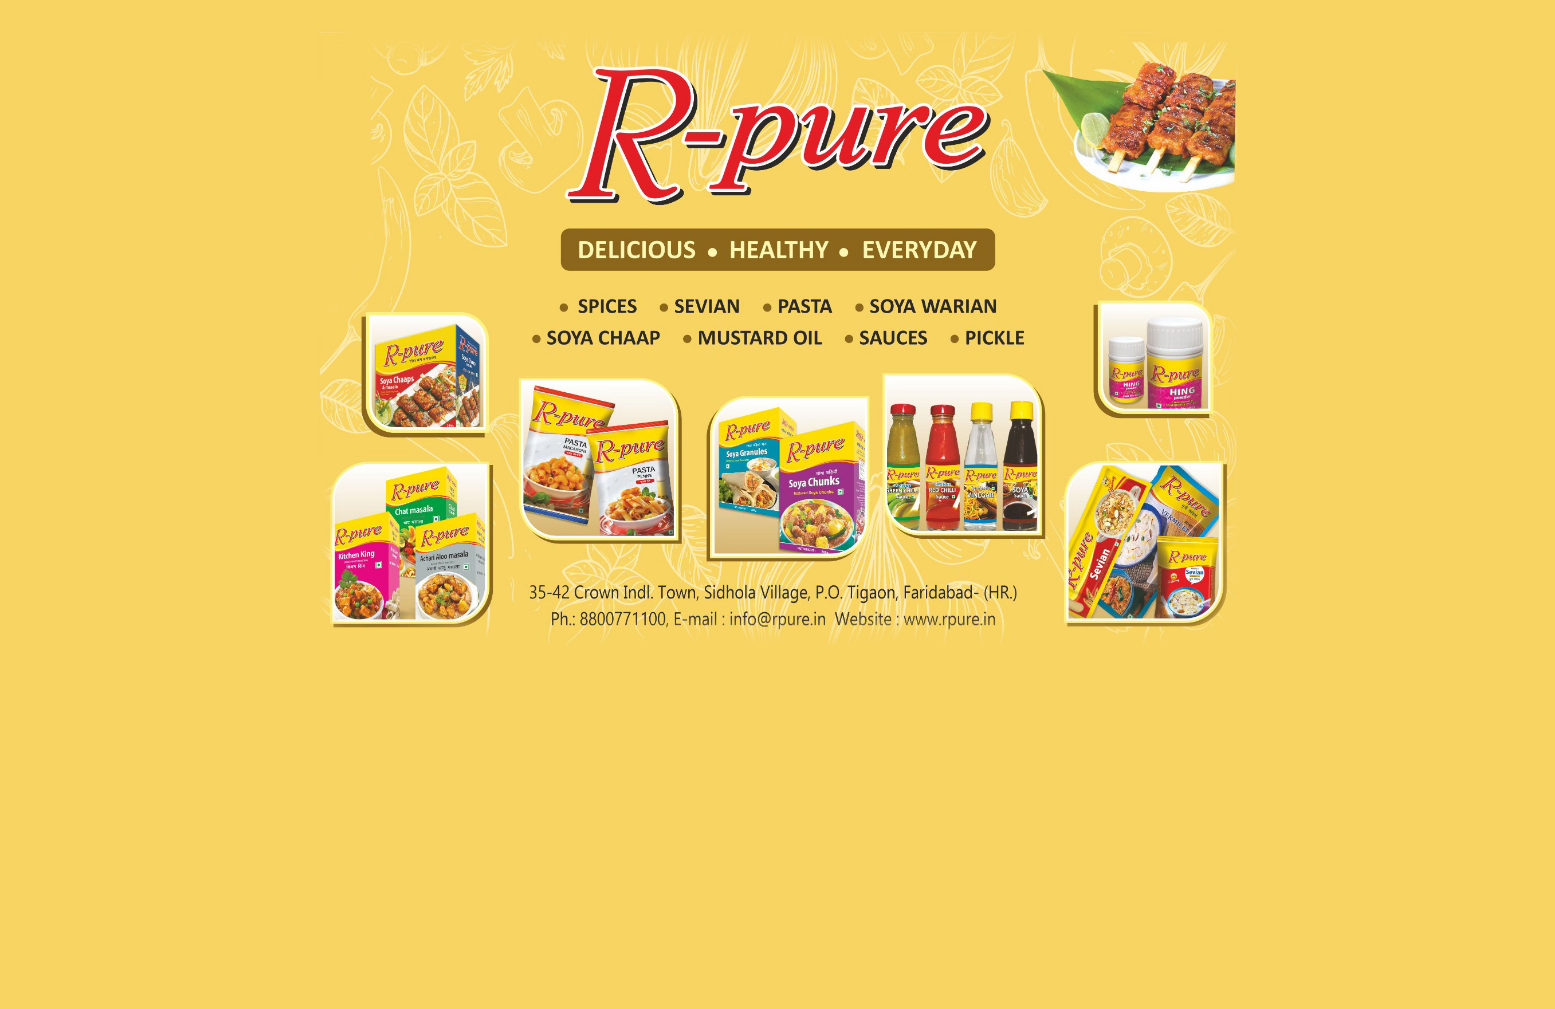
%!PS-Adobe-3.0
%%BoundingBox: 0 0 1555 1009
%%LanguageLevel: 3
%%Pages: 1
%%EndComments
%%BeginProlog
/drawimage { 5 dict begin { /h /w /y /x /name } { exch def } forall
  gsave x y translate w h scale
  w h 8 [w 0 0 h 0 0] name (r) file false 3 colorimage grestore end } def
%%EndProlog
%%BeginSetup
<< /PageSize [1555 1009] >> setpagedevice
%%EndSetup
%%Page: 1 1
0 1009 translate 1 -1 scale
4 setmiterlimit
0.973 0.831 0.384 setrgbcolor
0 0 1555 1009 rectfill
(images/1.raw) 318 29 921 616 drawimage
showpage
%%EOF
